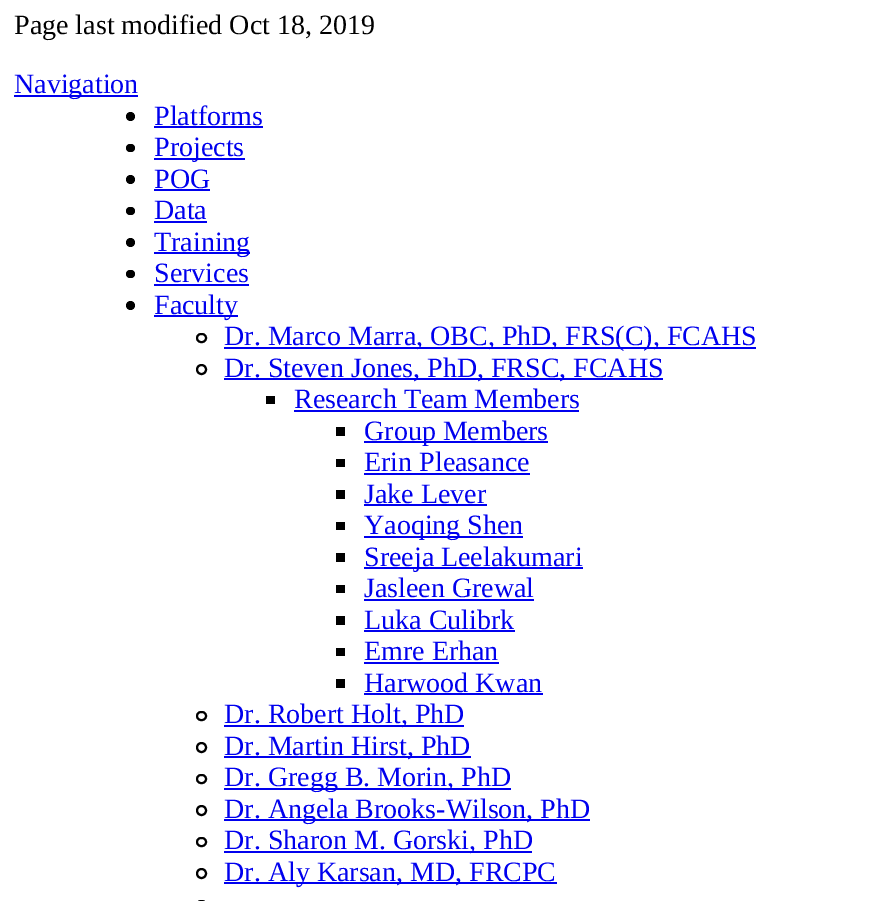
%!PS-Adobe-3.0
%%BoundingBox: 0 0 873 901
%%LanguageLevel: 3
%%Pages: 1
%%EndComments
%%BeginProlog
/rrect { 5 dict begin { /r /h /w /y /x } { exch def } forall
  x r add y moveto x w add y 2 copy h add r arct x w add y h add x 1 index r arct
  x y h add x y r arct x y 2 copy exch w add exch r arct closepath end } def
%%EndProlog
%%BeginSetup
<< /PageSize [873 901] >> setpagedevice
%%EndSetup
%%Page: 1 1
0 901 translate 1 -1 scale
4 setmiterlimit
1 setgray
0 0 873 901 rectfill
0 0 0.933 setrgbcolor
14 95 124 2 rectfill
0 setgray
newpath 130.5 116.5 4.5 0 360 arc closepath fill
0 0 0.933 setrgbcolor
154 126 109 2 rectfill
0 setgray
126 144 9 8 4 rrect fill
0 0 0.933 setrgbcolor
154 158 91 2 rectfill
0 setgray
newpath 130.5 179.5 4.5 0 360 arc closepath fill
0 0 0.933 setrgbcolor
154 189 56 2 rectfill
0 setgray
126 207 9 8 4 rrect fill
0 0 0.933 setrgbcolor
154 221 53 2 rectfill
0 setgray
newpath 130.5 242.5 4.5 0 360 arc closepath fill
0 0 0.933 setrgbcolor
154 252 96 2 rectfill
0 setgray
126 270 9 8 4 rrect fill
0 0 0.933 setrgbcolor
154 284 95 2 rectfill
0 setgray
newpath 130.5 305.5 4.5 0 360 arc closepath fill
0 0 0.933 setrgbcolor
154 315 84 2 rectfill
0 setgray
2 setlinewidth
197 334 9 8 4 rrect stroke
0 0 0.933 setrgbcolor
224 347 532 2 rectfill
0 setgray
newpath 201.5 369.5 4.5 0 360 arc closepath stroke
0 0 0.933 setrgbcolor
224 378 439 2 rectfill
0 setgray
266 396 9 8 rectfill
0 0 0.933 setrgbcolor
294 410 285 2 rectfill
0 setgray
336 427 9 9 rectfill
0 0 0.933 setrgbcolor
364 441 184 2 rectfill
0 setgray
336 459 9 8 rectfill
0 0 0.933 setrgbcolor
364 473 166 2 rectfill
0 setgray
336 490 9 9 rectfill
0 0 0.933 setrgbcolor
364 504 123 2 rectfill
0 setgray
336 522 9 8 rectfill
0 0 0.933 setrgbcolor
364 536 159 2 rectfill
0 setgray
336 553 9 9 rectfill
0 0 0.933 setrgbcolor
364 567 219 2 rectfill
0 setgray
336 585 9 8 rectfill
0 0 0.933 setrgbcolor
364 599 170 2 rectfill
0 setgray
336 616 9 9 rectfill
0 0 0.933 setrgbcolor
364 630 151 2 rectfill
0 setgray
336 648 9 8 rectfill
0 0 0.933 setrgbcolor
364 662 135 2 rectfill
0 setgray
336 679 9 9 rectfill
0 0 0.933 setrgbcolor
364 693 179 2 rectfill
0 setgray
197 712 9 8 4 rrect stroke
0 0 0.933 setrgbcolor
224 725 240 2 rectfill
0 setgray
newpath 201.5 747.5 4.5 0 360 arc closepath stroke
0 0 0.933 setrgbcolor
224 756 247 2 rectfill
0 setgray
197 775 9 8 4 rrect stroke
0 0 0.933 setrgbcolor
224 788 287 2 rectfill
0 setgray
newpath 201.5 810.5 4.5 0 360 arc closepath stroke
0 0 0.933 setrgbcolor
224 819 366 2 rectfill
0 setgray
197 838 9 8 4 rrect stroke
0 0 0.933 setrgbcolor
224 851 308 2 rectfill
0 setgray
newpath 201.5 873.5 4.5 0 360 arc closepath stroke
0 0 0.933 setrgbcolor
224 882 333 2 rectfill
0 setgray
197 901 9 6 4 rrect stroke
/LiberationSerif-Regular [28 0 0 -28 0 0] selectfont
14 34 moveto (Page last modified Oct 18, 2019) show
0 0 0.933 setrgbcolor
14 93 moveto (Navigation) show
154 125 moveto (Platforms) show
154 156 moveto (Projects) show
154 188 moveto (POG) show
154 219 moveto (Data) show
154 251 moveto (Training) show
154 282 moveto (Services) show
154 314 moveto (Faculty) show
224 345 moveto (Dr. Marco Marra, OBC, PhD, FRS\(C\), FCAHS) show
224 377 moveto (Dr. Steven Jones, PhD, FRSC, FCAHS) show
294 408 moveto (Research Team Members) show
364 440 moveto (Group Members) show
364 471 moveto (Erin Pleasance) show
364 503 moveto (Jake Lever) show
364 534 moveto (Yaoqing Shen) show
364 566 moveto (Sreeja Leelakumari) show
364 597 moveto (Jasleen Grewal) show
364 629 moveto (Luka Culibrk) show
364 660 moveto (Emre Erhan) show
364 692 moveto (Harwood Kwan) show
224 723 moveto (Dr. Robert Holt, PhD) show
224 755 moveto (Dr. Martin Hirst, PhD) show
224 786 moveto (Dr. Gregg B. Morin, PhD) show
224 818 moveto (Dr. Angela Brooks-Wilson, PhD) show
224 849 moveto (Dr. Sharon M. Gorski, PhD) show
224 881 moveto (Dr. Aly Karsan, MD, FRCPC) show
showpage
%%EOF
